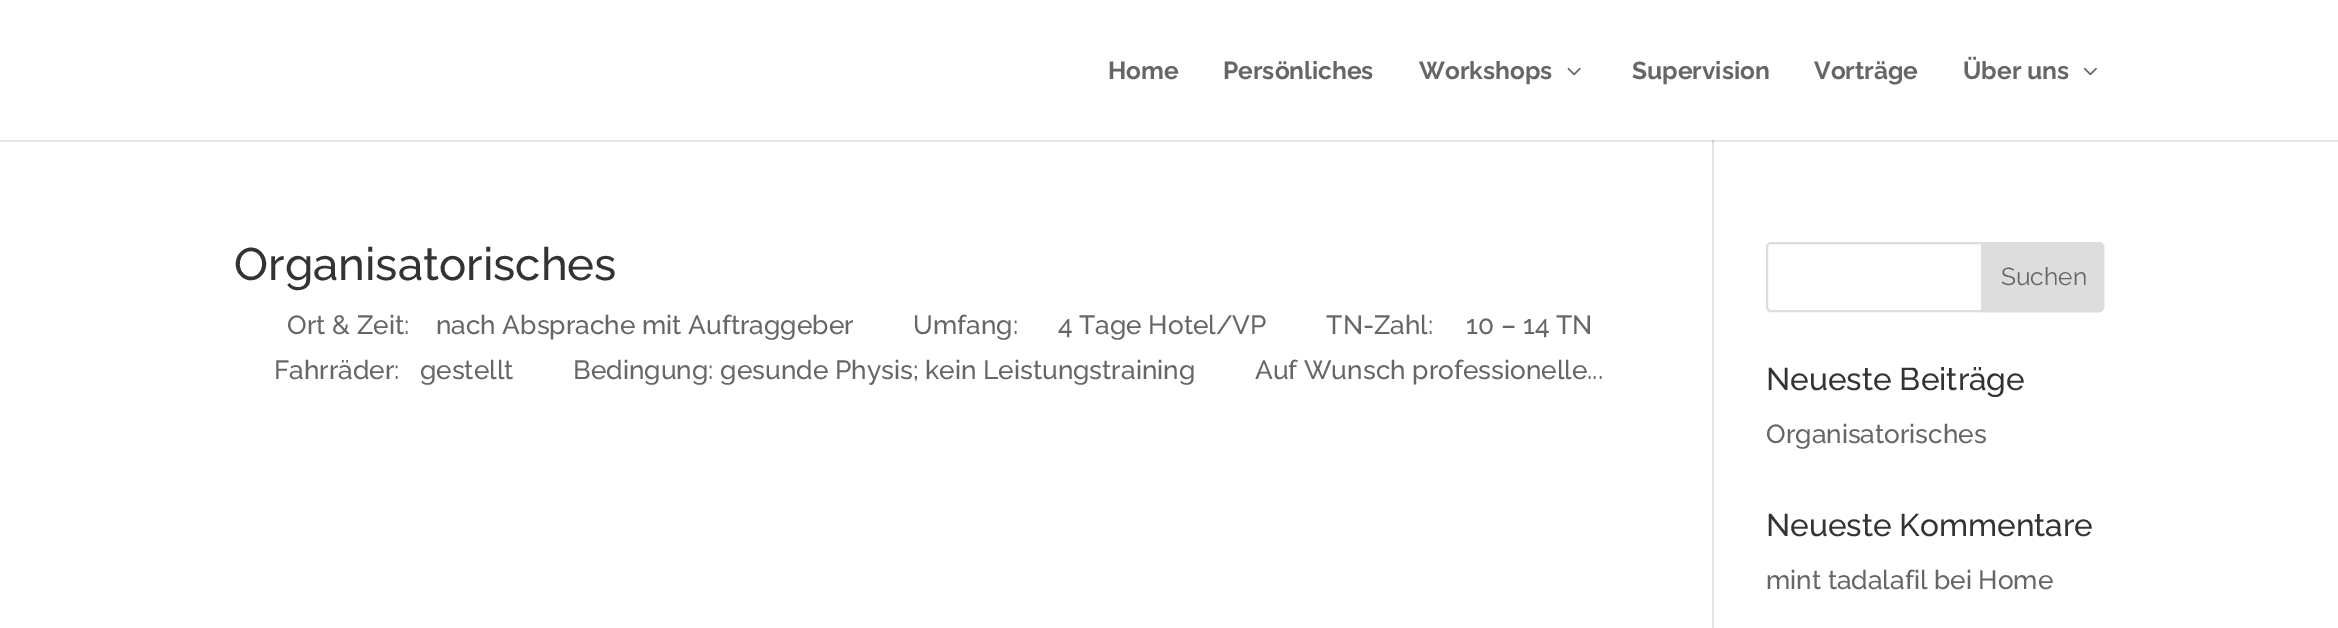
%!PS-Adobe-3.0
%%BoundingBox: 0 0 2338 628
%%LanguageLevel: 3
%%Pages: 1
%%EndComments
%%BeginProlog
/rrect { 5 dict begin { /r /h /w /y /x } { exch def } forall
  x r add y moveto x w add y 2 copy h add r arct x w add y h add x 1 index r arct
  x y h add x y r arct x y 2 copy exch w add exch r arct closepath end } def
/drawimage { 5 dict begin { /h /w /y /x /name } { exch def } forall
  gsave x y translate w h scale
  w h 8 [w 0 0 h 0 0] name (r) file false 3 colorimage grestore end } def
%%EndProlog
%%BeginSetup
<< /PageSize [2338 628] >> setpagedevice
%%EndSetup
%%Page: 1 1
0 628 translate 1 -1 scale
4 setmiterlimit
1 setgray
0 0 2338 628 rectfill
0.902 setgray
0 140 2338 2 rectfill
(images/1.raw) 1567 67 14 9 drawimage
(images/2.raw) 2083 67 14 9 drawimage
0.886 setgray
1712 140 2 488 rectfill
0.796 setgray
1712 140 2 2 rectfill
0.867 setgray
2 setlinewidth
1767 243 336 68 4 rrect stroke
newpath 1982 243 moveto 2099 243 lineto 2101 243 2103 245 2103 247 curveto 2103 307 lineto 2103 309 2101 311 2099 311 curveto 1982 311 lineto closepath gsave fill grestore
stroke
/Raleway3-Thin [24.5 0 0 -24.5 0 0] selectfont
0.4 setgray
1108 79 moveto (Home) show
1223 79 moveto (Persönliches) show
1419 79 moveto (Workshops) show
1632 79 moveto (Supervision) show
1814 79 moveto (Vorträge) show
1963 79 moveto (Über uns) show
/Raleway-Thin [45.5 0 0 -45.5 0 0] selectfont
0.2 setgray
234 280 moveto (Organisatorisches) show
/Raleway-Thin [26.25 0 0 -26.25 0 0] selectfont
0.4 setgray
287 334 moveto (Ort & Zeit:    nach Absprache mit Auftraggeber         Umfang:      4 Tage Hotel/VP         TN-Zahl:     10 – 14 TN) show
274 379 moveto (Fahrräder:   gestellt         Bedingung: gesunde Physis; kein Leistungstraining         Auf Wunsch professionelle...) show
/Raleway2-Thin [24.5 0 0 -24.5 0 0] selectfont
2001 285 moveto (Suchen) show
/Raleway-Thin [31.5 0 0 -31.5 0 0] selectfont
0.2 setgray
1766 390 moveto (Neueste Beiträge) show
/Raleway-Thin [26.25 0 0 -26.25 0 0] selectfont
0.4 setgray
1766 443 moveto (Organisatorisches) show
/Raleway-Thin [31.5 0 0 -31.5 0 0] selectfont
0.2 setgray
1766 536 moveto (Neueste Kommentare) show
/Raleway-Thin [26.25 0 0 -26.25 0 0] selectfont
0.4 setgray
1766 589 moveto (mint tadalafil bei Home) show
showpage
%%EOF
